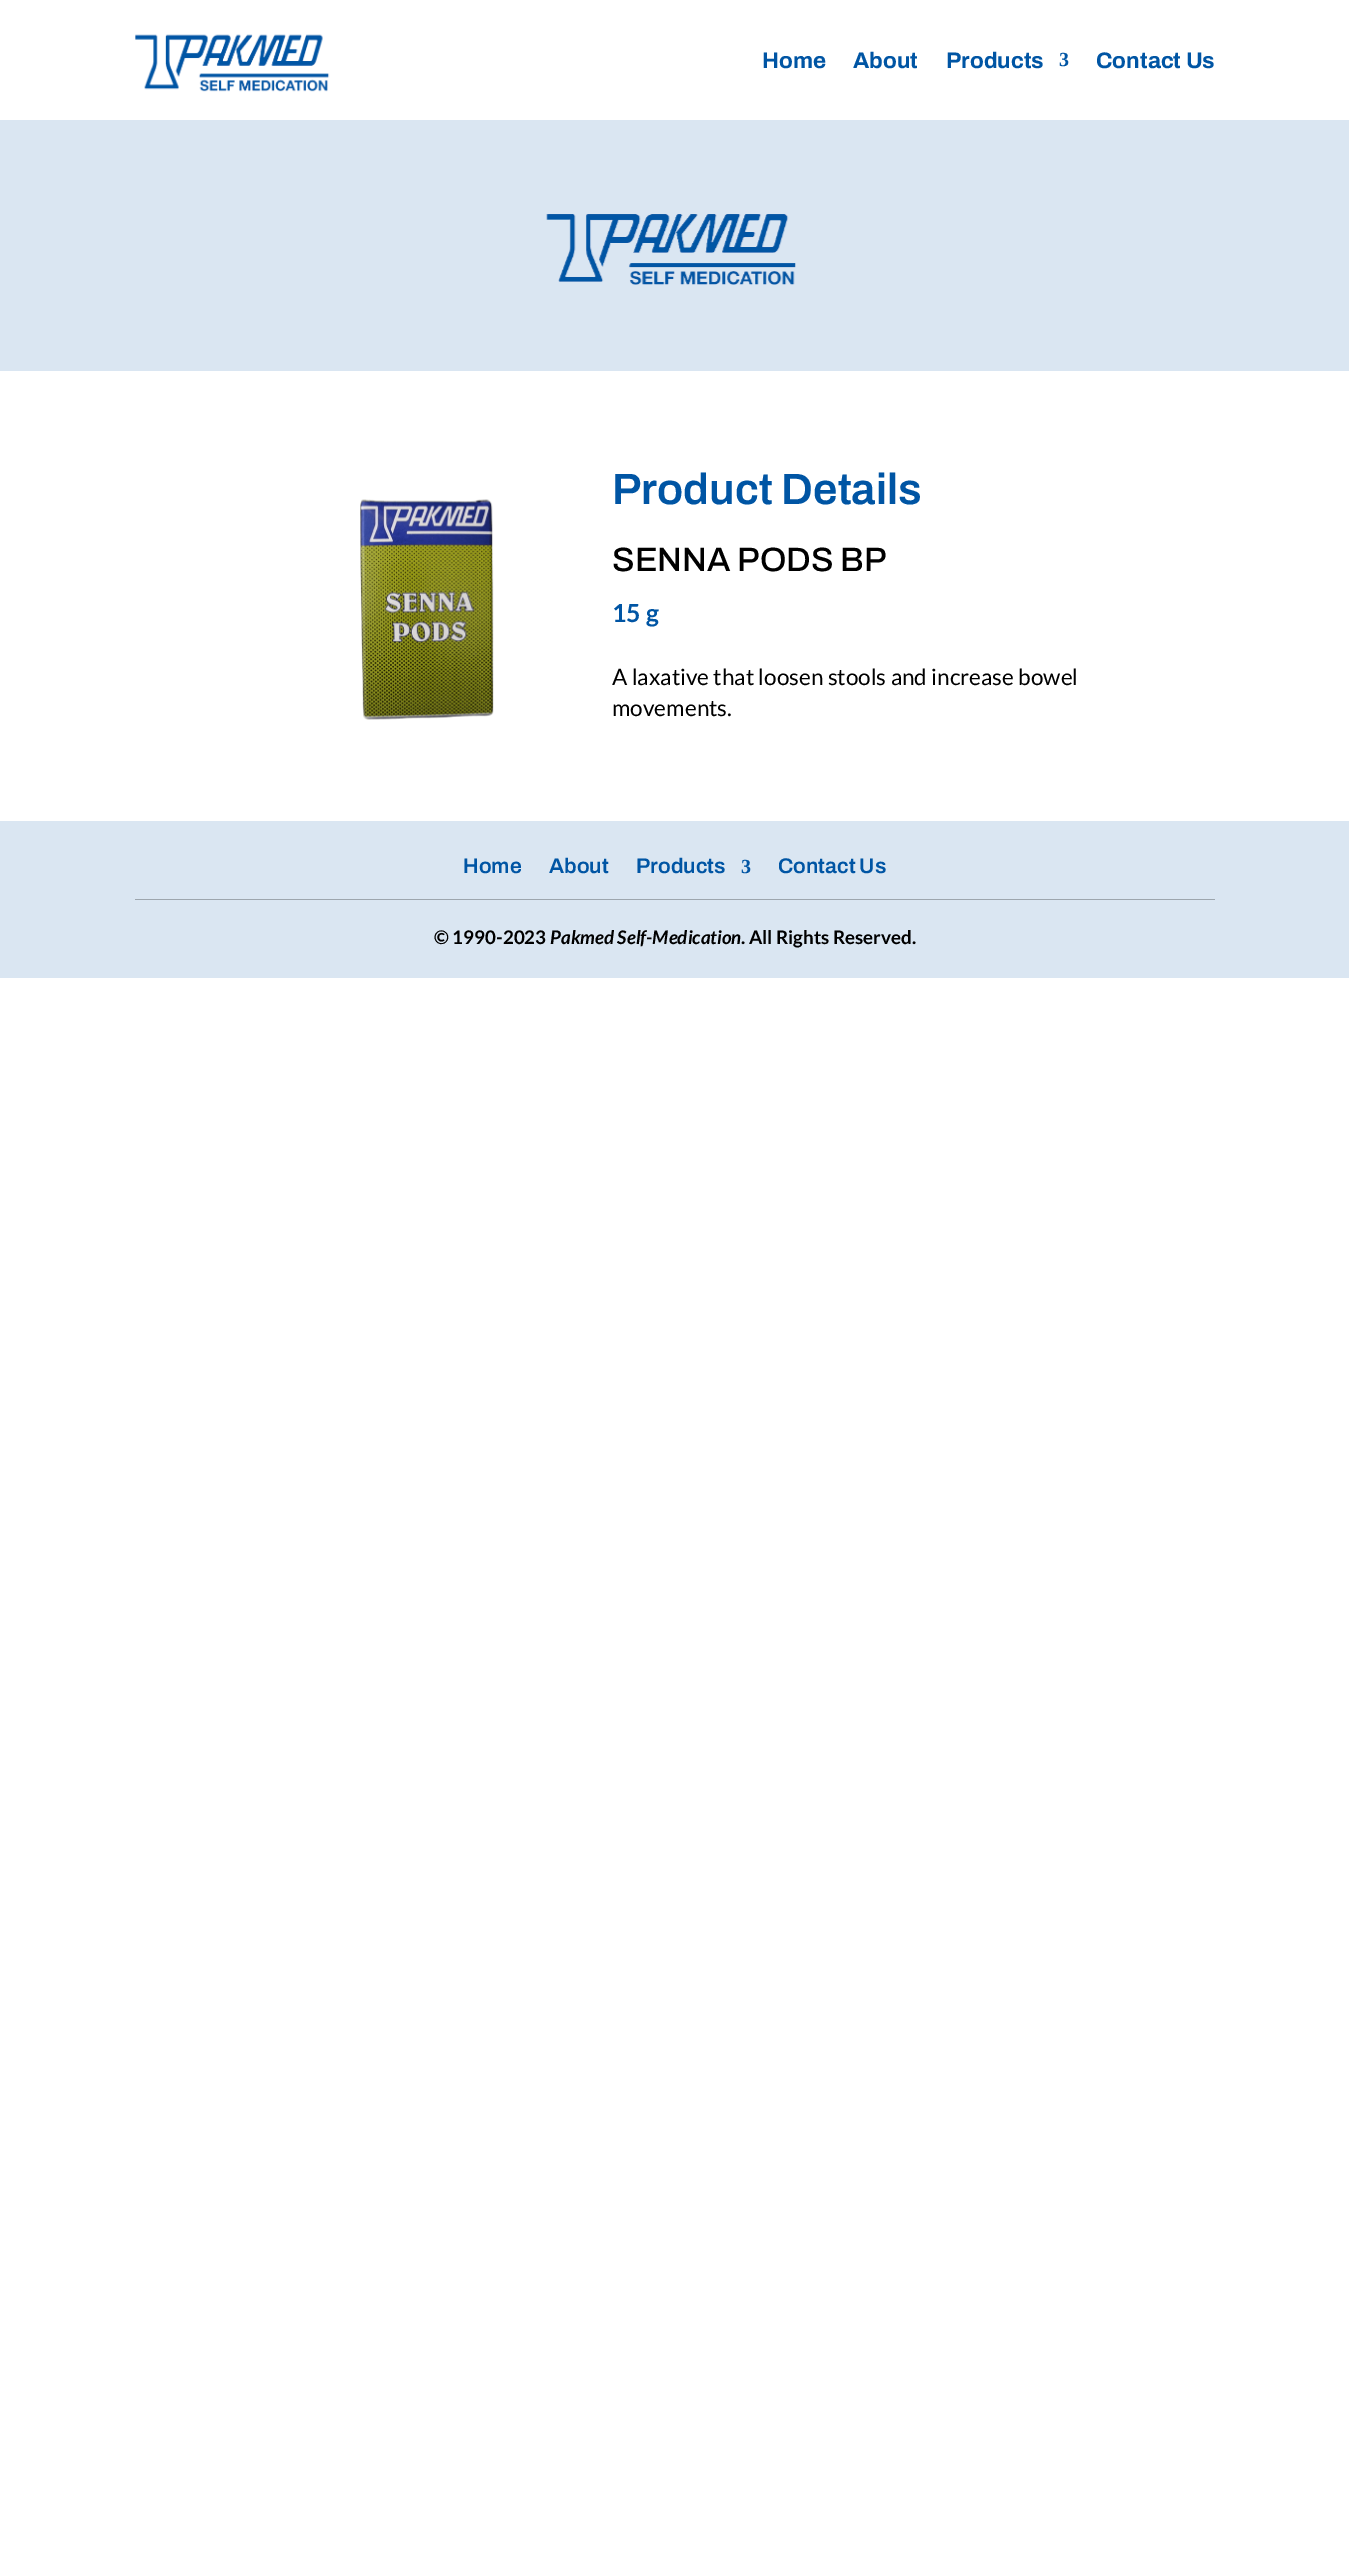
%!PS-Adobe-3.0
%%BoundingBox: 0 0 1349 2561
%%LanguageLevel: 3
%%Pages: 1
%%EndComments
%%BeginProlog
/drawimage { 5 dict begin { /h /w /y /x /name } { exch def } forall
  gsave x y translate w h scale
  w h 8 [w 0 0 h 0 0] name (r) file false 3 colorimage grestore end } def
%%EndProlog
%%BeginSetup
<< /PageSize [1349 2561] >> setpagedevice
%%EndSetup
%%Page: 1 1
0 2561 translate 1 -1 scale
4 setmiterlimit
1 setgray
0 0 1349 2561 rectfill
(images/1.raw) 135 34 195 58 drawimage
0.855 0.902 0.949 setrgbcolor
0 120 1349 251 rectfill
(images/2.raw) 546 214 250 71 drawimage
(images/3.raw) 360 499 134 221 drawimage
0 821 1349 157 rectfill
0.616 0.651 0.682 setrgbcolor
135 899 1080 1 rectfill
/Archivo-Bold [22.5 0 0 -22.5 0 0] selectfont
0 0.333 0.643 setrgbcolor
762 68 moveto (Home) show
853 68 moveto (About) show
946 68 moveto (Products) show
/LiberationSerif-Bold [20 0 0 -20 0 0] selectfont
1059 66 moveto (3) show
/Archivo-Bold [22.5 0 0 -22.5 0 0] selectfont
1096 68 moveto (Contact Us) show
/Archivo-SemiBold [43.75 0 0 -43.75 0 0] selectfont
612 504 moveto (Product Details) show
/Archivo-Medium [33.75 0 0 -33.75 0 0] selectfont
0 setgray
612 571 moveto (SENNA PODS BP) show
/Lato-Bold [25 0 0 -25 0 0] selectfont
0 0.333 0.643 setrgbcolor
612 622 moveto (15 g) show
/Lato-Regular [22.5 0 0 -22.5 0 0] selectfont
0 setgray
612 685 moveto (A laxative that loosen stools and increase bowel) show
612 716 moveto (movements.) show
/Archivo-SemiBold [21.25 0 0 -21.25 0 0] selectfont
0 0.333 0.643 setrgbcolor
463 873 moveto (Home) show
549 873 moveto (About) show
636 873 moveto (Products) show
/LiberationSerif-Bold [20 0 0 -20 0 0] selectfont
741 873 moveto (3) show
/Archivo-SemiBold [21.25 0 0 -21.25 0 0] selectfont
778 873 moveto (Contact Us) show
/Lato-Bold [18.75 0 0 -18.75 0 0] selectfont
0 setgray
434 944 moveto (© 1990-2023) show
/Lato-BoldItalic [18.75 0 0 -18.75 0 0] selectfont
550 944 moveto (Pakmed Self-Medication) show
/Lato-Bold [18.75 0 0 -18.75 0 0] selectfont
741 944 moveto (. All Rights Reserved.) show
showpage
%%EOF
